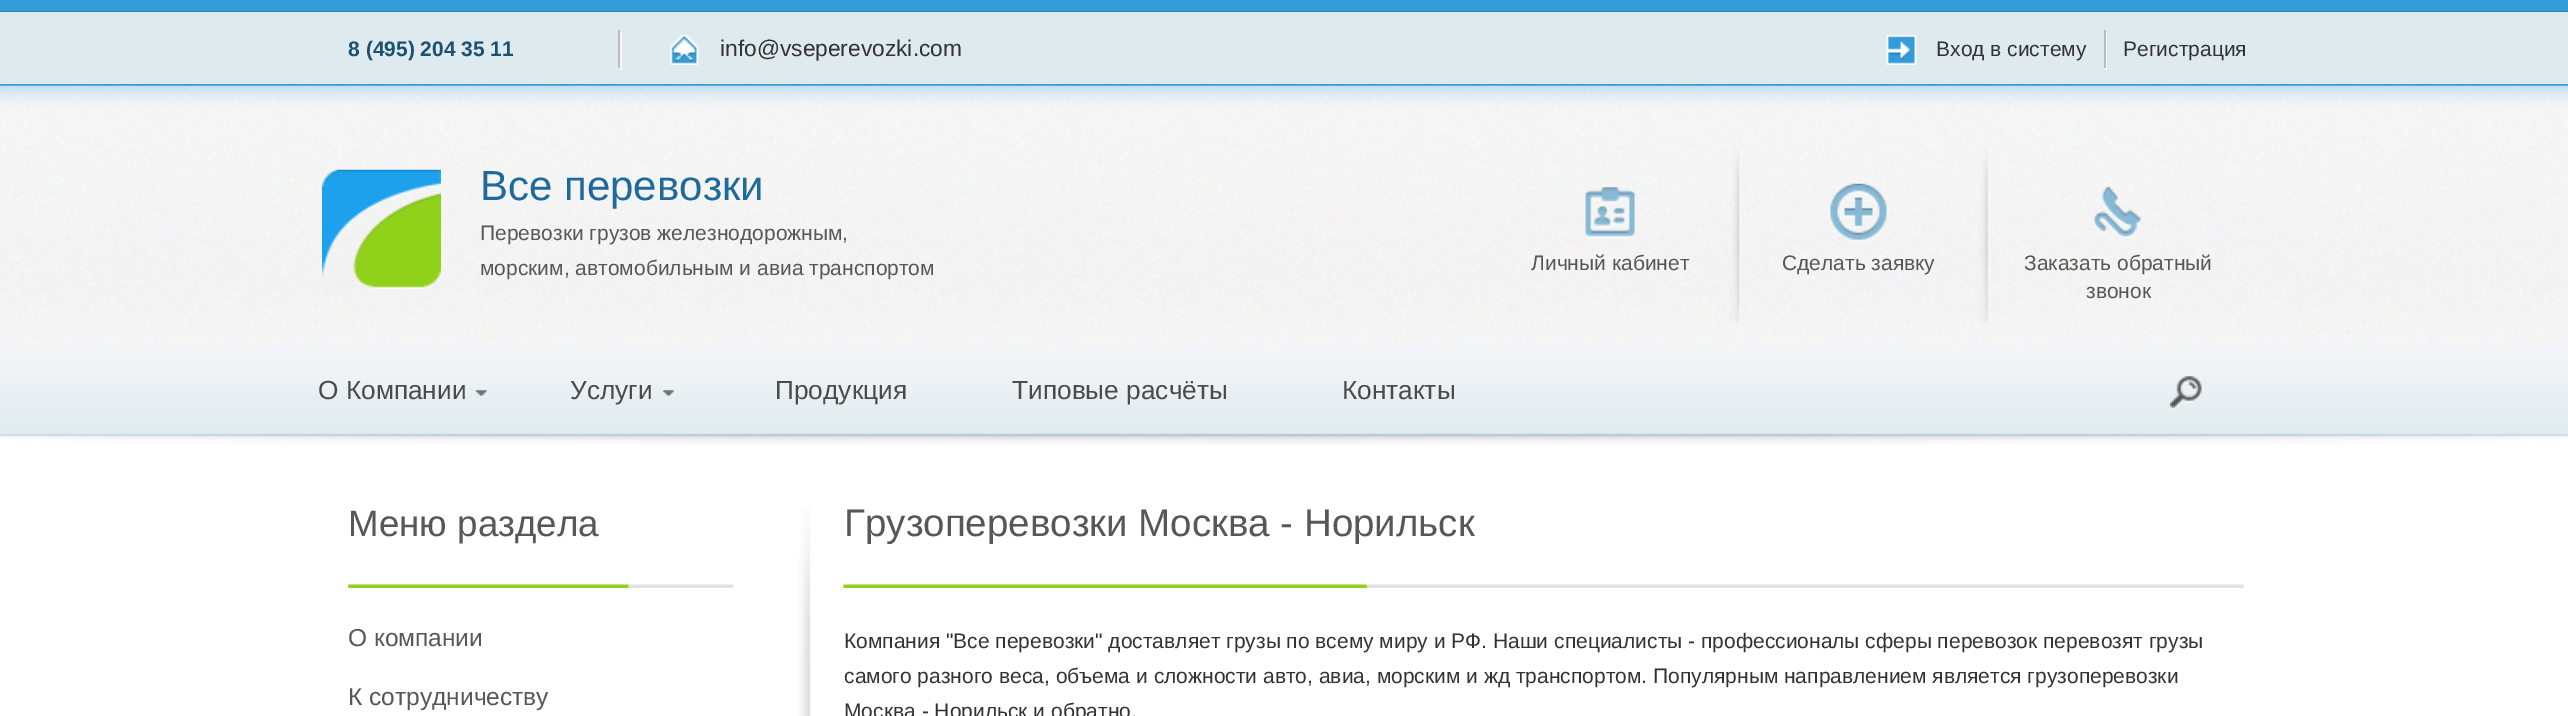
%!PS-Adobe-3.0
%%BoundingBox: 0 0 2568 716
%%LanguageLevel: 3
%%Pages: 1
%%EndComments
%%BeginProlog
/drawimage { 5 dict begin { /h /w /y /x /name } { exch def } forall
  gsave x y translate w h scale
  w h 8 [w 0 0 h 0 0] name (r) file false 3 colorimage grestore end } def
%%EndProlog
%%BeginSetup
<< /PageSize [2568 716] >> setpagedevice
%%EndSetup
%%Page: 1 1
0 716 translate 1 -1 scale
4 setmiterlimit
1 setgray
0 0 2568 716 rectfill
0.204 0.612 0.843 setrgbcolor
0 0 2568 11 rectfill
0.149 0.506 0.71 setrgbcolor
0 11 2568 1 rectfill
0.871 0.918 0.929 setrgbcolor
0 12 2568 72 rectfill
0.204 0.612 0.843 setrgbcolor
0 84 2568 2 rectfill
0.961 0.976 0.98 setrgbcolor
620 32 2 38 rectfill
0.733 setgray
618 30 2 38 rectfill
(images/1.raw) 670 35 29 30 drawimage
(images/2.raw) 1886 35 31 30 drawimage
0.961 0.976 0.98 setrgbcolor
newpath 2105 68 moveto 2105 70 lineto 2107 70 lineto 2107 32 lineto 2105 32 lineto closepath fill
0.733 setgray
2104 30 2 38 rectfill
(images/3.raw) 0 85 2568 260 drawimage
(images/4.raw) 322 169 119 120 drawimage
(images/5.raw) 1585 187 51 52 drawimage
(images/6.raw) 1729 147 12 175 drawimage
(images/7.raw) 1830 183 57 59 drawimage
(images/8.raw) 1977 147 13 175 drawimage
(images/9.raw) 2094 187 47 51 drawimage
(images/10.raw) 0 344 2568 92 drawimage
(images/11.raw) 0 345 2568 100 drawimage
(images/12.raw) 476 390 11 6 drawimage
(images/13.raw) 663 390 11 6 drawimage
(images/14.raw) 2170 376 32 34 drawimage
(images/15.raw) 348 584 386 4 drawimage
(images/16.raw) 798 507 13 165 drawimage
(images/17.raw) 843 584 1401 4 drawimage
(images/18.raw) 799 672 12 44 drawimage
/LiberationSans-Bold [21 0 0 -21 0 0] selectfont
0.114 0.318 0.451 setrgbcolor
348 56 moveto (8 \(495\) 204 35 11) show
/LiberationSans-Regular [22.75 0 0 -22.75 0 0] selectfont
0.2 setgray
720 56 moveto (info@vseperevozki.com) show
/LiberationSans-Regular [21 0 0 -21 0 0] selectfont
1936 56 moveto (Вход в систему) show
2123 56 moveto (Регистрация) show
/LiberationSans-Regular [42 0 0 -42 0 0] selectfont
0.122 0.416 0.612 setrgbcolor
480 200 moveto (Все перевозки) show
/LiberationSans-Regular [21 0 0 -21 0 0] selectfont
0.341 setgray
480 240 moveto (Перевозки грузов железнодорожным,) show
480 275 moveto (морским, автомобильным и авиа транспортом) show
1531 270 moveto (Личный кабинет) show
1782 270 moveto (Сделать заявку) show
2024 270 moveto (Заказать обратный) show
2086 298 moveto (звонок) show
/LiberationSans-Regular [26.25 0 0 -26.25 0 0] selectfont
0.294 setgray
318 399 moveto (О Компании) show
570 399 moveto (Услуги) show
775 399 moveto (Продукция) show
1012 399 moveto (Типовые расчёты) show
1342 399 moveto (Контакты) show
/LiberationSans-Regular [36.75 0 0 -36.75 0 0] selectfont
0.341 setgray
348 536 moveto (Меню раздела) show
/LiberationSans-Regular [24.5 0 0 -24.5 0 0] selectfont
348 646 moveto (О компании) show
348 705 moveto (К сотрудничеству) show
/LiberationSans-Regular [38.5 0 0 -38.5 0 0] selectfont
844 536 moveto (Грузоперевозки Москва - Норильск) show
/LiberationSans-Regular [21 0 0 -21 0 0] selectfont
0.2 setgray
844 648 moveto (Компания "Все перевозки" доставляет грузы по всему миру и РФ. Наши специалисты - профессионалы сферы перевозок перевозят грузы) show
844 683 moveto (самого разного веса, объема и сложности авто, авиа, морским и жд транспортом. Популярным направлением является грузоперевозки) show
844 718 moveto (Москва - Норильск и обратно.) show
showpage
%%EOF
